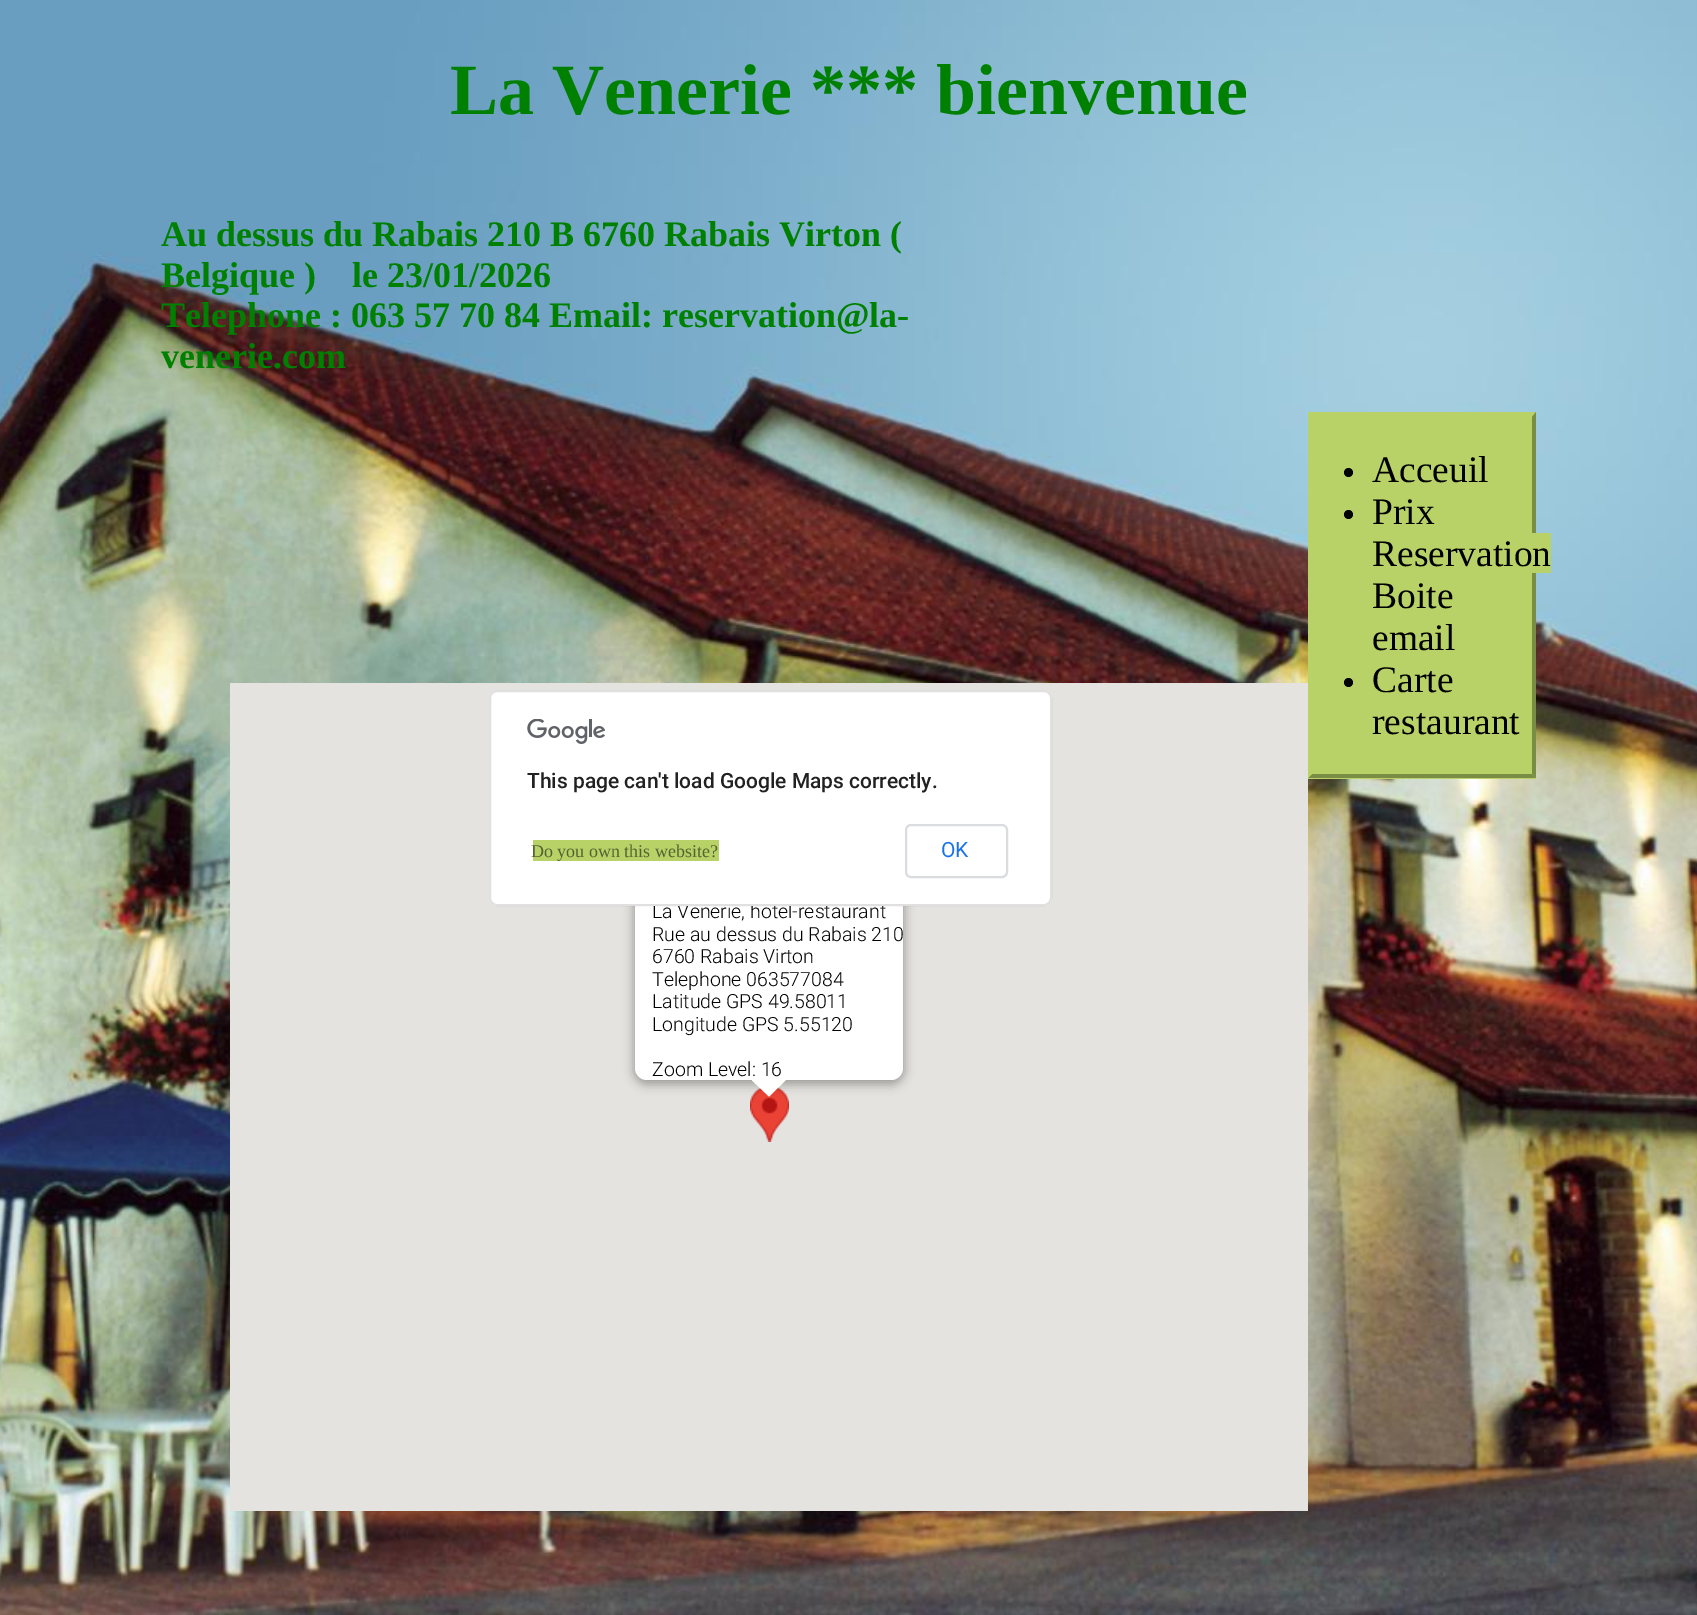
%!PS-Adobe-3.0
%%BoundingBox: 0 0 1697 1615
%%LanguageLevel: 3
%%Pages: 1
%%EndComments
%%BeginProlog
/setalpha { dup .setfillconstantalpha .setstrokeconstantalpha } def
/rrect { 5 dict begin { /r /h /w /y /x } { exch def } forall
  x r add y moveto x w add y 2 copy h add r arct x w add y h add x 1 index r arct
  x y h add x y r arct x y 2 copy exch w add exch r arct closepath end } def
/softshadow { 12 dict begin { /a /b /q /h /w /y /x } { exch def } forall gsave /was 0 def
  9 -2 -9 { dup b mul 4 div /e exch def 1 sub .425 mul 2.718 exch exp 1 add a .99 .min exch div /now exch def
    1 1 now sub 1 was sub div sub setalpha /was now def
    w h .min e 2 mul add 0 gt { x e sub y e sub w e 2 mul add h e 2 mul add
      q e add b .6 mul add w h .min 2 div e add .min 0 .max rrect fill } if } for grestore end } def
/drawimage { 5 dict begin { /h /w /y /x /name } { exch def } forall
  gsave x y translate w h scale
  w h 8 [w 0 0 h 0 0] name (r) file false 3 colorimage grestore end } def
%%EndProlog
%%BeginSetup
<< /PageSize [1697 1615] /PageUsesTransparency true >> setpagedevice
%%EndSetup
%%Page: 1 1
0 .pushpdf14devicefilter
0 1615 translate 1 -1 scale
4 setmiterlimit
1 setgray
0 0 1697 1615 rectfill
(images/1.raw) 0 0 1697 1615 drawimage
0.722 0.824 0.408 setrgbcolor
1308 413 228 366 rectfill
newpath 1308 412 moveto 1536 412 lineto 1532 417 lineto 1312 417 lineto closepath fill
0.482 0.549 0.271 setrgbcolor
newpath 1536 412 moveto 1536 778 lineto 1532 774 lineto 1532 417 lineto closepath fill
newpath 1536 778 moveto 1308 778 lineto 1312 774 lineto 1532 774 lineto closepath fill
0.722 0.824 0.408 setrgbcolor
newpath 1308 778 moveto 1308 412 lineto 1312 417 lineto 1312 774 lineto closepath fill
0 setgray
newpath 1348.5 472.5 4.5 0 360 arc closepath fill
newpath 1348.5 514.5 4.5 0 360 arc closepath fill
0.722 0.824 0.408 setrgbcolor
1532 533 19 40 rectfill
0 setgray
newpath 1348.5 682.5 4.5 0 360 arc closepath fill
0.898 0.89 0.875 setrgbcolor
230 683 1078 828 rectfill
(images/3.raw) 750 1087 39 55 drawimage
0 setgray
633 830 272 255 14 5 0.3 softshadow
1 setgray
635 828 268 252 12 rrect fill
newpath 752 1079 moveto 752 1080.5 lineto 769 1096.5 lineto 787 1079 lineto closepath fill
/LiberationSerif-Bold [72 0 0 -72 0 0] selectfont
0 0.502 0 setrgbcolor
450 114 moveto (La Venerie *** bienvenue) show
/LiberationSerif-Bold [36 0 0 -36 0 0] selectfont
161 246 moveto (Au dessus du Rabais 210 B 6760 Rabais Virton \() show
161 287 moveto (Belgique \)) show
352 287 moveto (le 23/01/2026) show
161 327 moveto (Telephone : 063 57 70 84 Email: reservation@la-) show
161 368 moveto (venerie.com) show
/LiberationSerif-Regular [37.5 0 0 -37.5 0 0] selectfont
0 setgray
1372 482 moveto (Acceuil) show
1372 524 moveto (Prix) show
1372 566 moveto (Reservation) show
1372 608 moveto (Boite) show
1372 650 moveto (email) show
1372 692 moveto (Carte) show
1372 734 moveto (restaurant) show
/Roboto-Light [19.5 0 0 -19.5 0 0] selectfont
652 918 moveto (La Venerie, hotel-restaurant) show
1 setgray
489 690 563 216 8 rrect fill
0.12 setalpha
0 setgray
2 setlinewidth
490 691 561 214 7 rrect stroke
1 setalpha
0.855 0.863 0.878 setrgbcolor
906 825 101 52 5 rrect stroke
/Roboto-Regular [21 0 0 -21 0 0] selectfont
0.102 0.451 0.91 setrgbcolor
941 857 moveto (OK) show
0.722 0.824 0.408 setrgbcolor
533 840 186 21 rectfill
/LiberationSerif-Regular [18 0 0 -18 0 0] selectfont
0.333 0.38 0.188 setrgbcolor
531 857 moveto (Do you own this website?) show
/Roboto-Medium [21 0 0 -21 0 0] selectfont
0.129 setgray
527 788 moveto (This page can't load Google Maps correctly.) show
(images/2.raw) 527 719 78 25 drawimage
/Roboto-Light [19.5 0 0 -19.5 0 0] selectfont
0 setgray
652 941 moveto (Rue au dessus du Rabais 210) show
652 963 moveto (6760 Rabais Virton) show
652 986 moveto (Telephone 063577084) show
652 1008 moveto (Latitude GPS 49.58011) show
652 1031 moveto (Longitude GPS 5.55120) show
652 1076 moveto (Zoom Level: 16) show
.poppdf14devicefilter showpage
%%EOF
